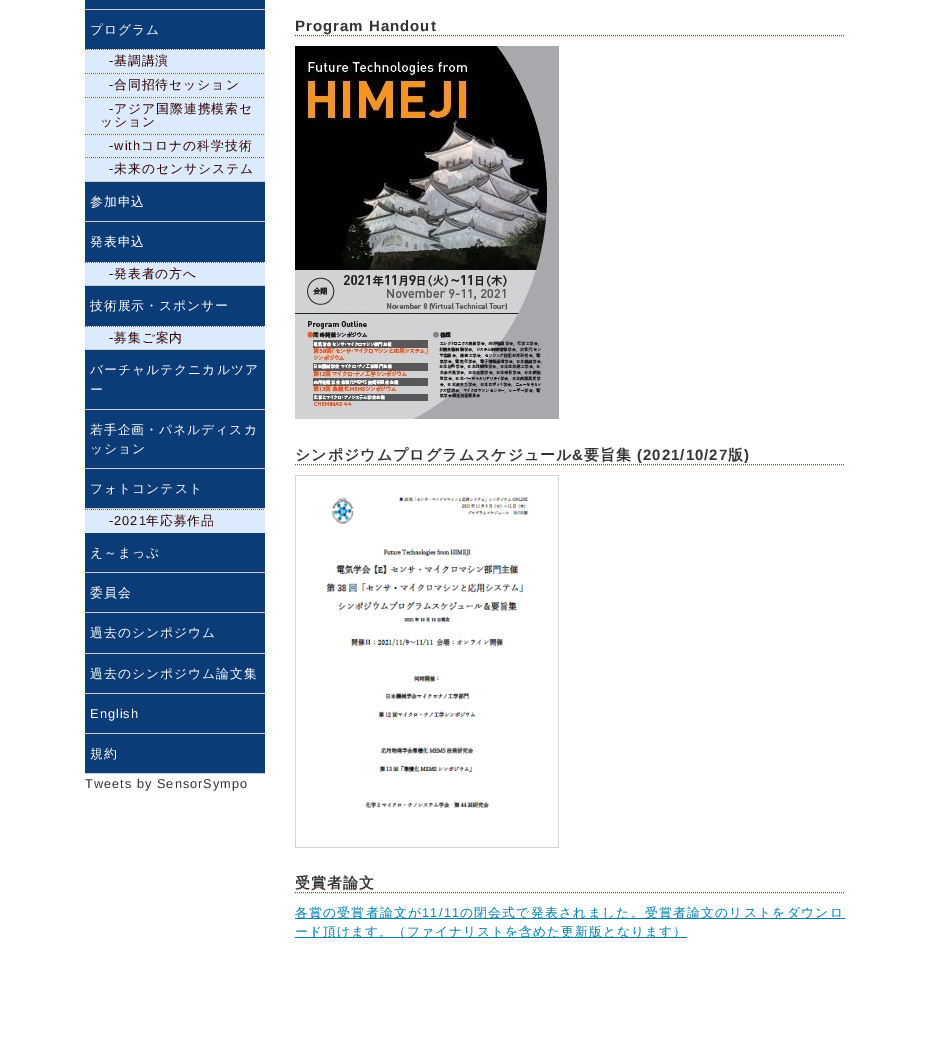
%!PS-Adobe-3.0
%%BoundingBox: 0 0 929 1044
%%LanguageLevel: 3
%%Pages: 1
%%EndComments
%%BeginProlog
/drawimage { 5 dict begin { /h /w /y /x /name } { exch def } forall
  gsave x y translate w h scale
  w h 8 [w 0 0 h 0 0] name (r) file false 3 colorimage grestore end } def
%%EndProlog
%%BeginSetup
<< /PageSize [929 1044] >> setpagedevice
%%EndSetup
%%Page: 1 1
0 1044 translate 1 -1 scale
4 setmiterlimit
1 setgray
0 0 929 1044 rectfill
0.8 setgray
85 9 180 1 rectfill
0.047 0.235 0.471 setrgbcolor
85 0 180 9 rectfill
0.8 setgray
85 181 180 1 rectfill
0.047 0.235 0.471 setrgbcolor
85 10 180 39 rectfill
0.4 setgray
[1 1] 0 setdash
newpath 85 49.5 moveto 265 49.5 lineto stroke
0.859 0.918 0.992 setrgbcolor
85 50 180 23 rectfill
0.4 setgray
newpath 85 73.5 moveto 265 73.5 lineto stroke
0.859 0.918 0.992 setrgbcolor
85 74 180 23 rectfill
0.4 setgray
newpath 85 97.5 moveto 265 97.5 lineto stroke
0.859 0.918 0.992 setrgbcolor
85 98 180 36 rectfill
0.4 setgray
newpath 85 134.5 moveto 265 134.5 lineto stroke
0.859 0.918 0.992 setrgbcolor
85 135 180 22 rectfill
0.4 setgray
newpath 85 157.5 moveto 265 157.5 lineto stroke
0.859 0.918 0.992 setrgbcolor
85 158 180 23 rectfill
0.8 setgray
85 221 180 1 rectfill
0.047 0.235 0.471 setrgbcolor
85 182 180 39 rectfill
0.8 setgray
85 285 180 1 rectfill
0.047 0.235 0.471 setrgbcolor
85 222 180 40 rectfill
0.4 setgray
newpath 85 262.5 moveto 265 262.5 lineto stroke
0.859 0.918 0.992 setrgbcolor
85 263 180 22 rectfill
0.8 setgray
85 349 180 1 rectfill
0.047 0.235 0.471 setrgbcolor
85 286 180 40 rectfill
0.4 setgray
newpath 85 326.5 moveto 265 326.5 lineto stroke
0.859 0.918 0.992 setrgbcolor
85 327 180 22 rectfill
0.8 setgray
85 409 180 1 rectfill
0.047 0.235 0.471 setrgbcolor
85 350 180 59 rectfill
0.8 setgray
85 468 180 1 rectfill
0.047 0.235 0.471 setrgbcolor
85 410 180 58 rectfill
0.8 setgray
85 508 180 1 rectfill
0.047 0.235 0.471 setrgbcolor
85 469 180 39 rectfill
0.4 setgray
newpath 85 509.5 moveto 265 509.5 lineto stroke
0.859 0.918 0.992 setrgbcolor
85 510 180 23 rectfill
0.8 setgray
85 572 180 1 rectfill
0.047 0.235 0.471 setrgbcolor
85 533 180 39 rectfill
0.8 setgray
85 612 180 1 rectfill
0.047 0.235 0.471 setrgbcolor
85 573 180 39 rectfill
0.8 setgray
85 653 180 1 rectfill
0.047 0.235 0.471 setrgbcolor
85 613 180 40 rectfill
0.8 setgray
85 693 180 1 rectfill
0.047 0.235 0.471 setrgbcolor
85 654 180 39 rectfill
0.8 setgray
85 733 180 1 rectfill
0.047 0.235 0.471 setrgbcolor
85 694 180 39 rectfill
0.8 setgray
85 773 180 1 rectfill
0.047 0.235 0.471 setrgbcolor
85 734 180 39 rectfill
0 0.502 0.69 setrgbcolor
newpath 295 35.5 moveto 845 35.5 lineto stroke
(images/1.raw) 295 46 264 373 drawimage
newpath 295 464.5 moveto 845 464.5 lineto stroke
(images/2.raw) 295 475 264 373 drawimage
newpath 295 892.5 moveto 845 892.5 lineto stroke
295 918 550 1 rectfill
295 937 392 1 rectfill
/WenQuanYiZenHei-Medium [12.8 0 0 -12.8 0 0] selectfont
1 setgray
90 34 moveto 1 0 (プログラム) ashow
/LiberationSans-Regular [12.8 0 0 -12.8 0 0] selectfont
0.2 0 0 setrgbcolor
109 65 moveto 1 0 (-) ashow
/WenQuanYiZenHei-Medium [12.8 0 0 -12.8 0 0] selectfont
114 65 moveto 1 0 (基調講演) ashow
/LiberationSans-Regular [12.8 0 0 -12.8 0 0] selectfont
109 89 moveto 1 0 (-) ashow
/WenQuanYiZenHei-Medium [12.8 0 0 -12.8 0 0] selectfont
114 89 moveto 1 0 (合同招待セッション) ashow
/LiberationSans-Regular [12.8 0 0 -12.8 0 0] selectfont
109 113 moveto 1 0 (-) ashow
/WenQuanYiZenHei-Medium [12.8 0 0 -12.8 0 0] selectfont
114 113 moveto 1 0 (アジア国際連携模索セ) ashow
100 126 moveto 1 0 (ッション) ashow
/LiberationSans-Regular [12.8 0 0 -12.8 0 0] selectfont
109 150 moveto 1 0 (-with) ashow
/WenQuanYiZenHei-Medium [12.8 0 0 -12.8 0 0] selectfont
141 150 moveto 1 0 (コロナの科学技術) ashow
/LiberationSans-Regular [12.8 0 0 -12.8 0 0] selectfont
109 173 moveto 1 0 (-) ashow
/WenQuanYiZenHei-Medium [12.8 0 0 -12.8 0 0] selectfont
114 173 moveto 1 0 (未来のセンサシステム) ashow
1 setgray
90 206 moveto 1 0 (参加申込) ashow
90 246 moveto 1 0 (発表申込) ashow
/LiberationSans-Regular [12.8 0 0 -12.8 0 0] selectfont
0.2 0 0 setrgbcolor
109 278 moveto 1 0 (-) ashow
/WenQuanYiZenHei-Medium [12.8 0 0 -12.8 0 0] selectfont
114 278 moveto 1 0 (発表者の方へ) ashow
1 setgray
90 310 moveto 1 0 (技術展示・スポンサー) ashow
/LiberationSans-Regular [12.8 0 0 -12.8 0 0] selectfont
0.2 0 0 setrgbcolor
109 342 moveto 1 0 (-) ashow
/WenQuanYiZenHei-Medium [12.8 0 0 -12.8 0 0] selectfont
114 342 moveto 1 0 (募集ご案内) ashow
1 setgray
90 374 moveto 1 0 (バーチャルテクニカルツア) ashow
90 394 moveto 1 0 (ー) ashow
90 434 moveto 1 0 (若手企画・パネルディスカ) ashow
90 453 moveto 1 0 (ッション) ashow
90 493 moveto 1 0 (フォトコンテスト) ashow
/LiberationSans-Regular [12.8 0 0 -12.8 0 0] selectfont
0.2 0 0 setrgbcolor
109 525 moveto 1 0 (-2021) ashow
/WenQuanYiZenHei-Medium [12.8 0 0 -12.8 0 0] selectfont
146 525 moveto 1 0 (年応募作品) ashow
1 setgray
90 557 moveto 1 0 (え～まっぷ) ashow
90 597 moveto 1 0 (委員会) ashow
90 637 moveto 1 0 (過去のシンポジウム) ashow
90 678 moveto 1 0 (過去のシンポジウム論文集) ashow
/LiberationSans-Regular [12.8 0 0 -12.8 0 0] selectfont
90 718 moveto 1 0 (English) ashow
/WenQuanYiZenHei-Medium [12.8 0 0 -12.8 0 0] selectfont
90 758 moveto 1 0 (規約) ashow
/LiberationSans-Regular [12.8 0 0 -12.8 0 0] selectfont
0.2 setgray
85 788 moveto 1 0 (Tweets by SensorSympo) ashow
/LiberationSans-Bold [15 0 0 -15 0 0] selectfont
295 31 moveto 1 0 (Program Handout) ashow
/WenQuanYiZenHei-Bold [15 0 0 -15 0 0] selectfont
295 460 moveto 1 0 (シンポジウムプログラムスケジュール) ashow
/LiberationSans-Bold [15 0 0 -15 0 0] selectfont
572 460 moveto 1 0 (&) ashow
/WenQuanYiZenHei-Bold [15 0 0 -15 0 0] selectfont
584 460 moveto 1 0 (要旨集) ashow
/LiberationSans-Bold [15 0 0 -15 0 0] selectfont
637 460 moveto 1 0 (\(2021/10/27) ashow
/WenQuanYiZenHei-Bold [15 0 0 -15 0 0] selectfont
728 460 moveto 1 0 (版) ashow
/LiberationSans-Bold [15 0 0 -15 0 0] selectfont
744 460 moveto 1 0 (\)) ashow
/WenQuanYiZenHei-Bold [15 0 0 -15 0 0] selectfont
295 888 moveto 1 0 (受賞者論文) ashow
/WenQuanYiZenHei-Medium [12.8 0 0 -12.8 0 0] selectfont
0 0.502 0.69 setrgbcolor
295 917 moveto 1.25 0 (各賞の受賞者論文が) ashow
/LiberationSans-Regular [12.8 0 0 -12.8 0 0] selectfont
422 917 moveto 1.25 0 (11/11) ashow
/WenQuanYiZenHei-Medium [12.8 0 0 -12.8 0 0] selectfont
460 917 moveto 1.25 0 (の閉会式で発表されました。受賞者論文のリストをダウンロ) ashow
295 936 moveto 1 0 (ード頂けます。（ファイナリストを含めた更新版となります）) ashow
showpage
%%EOF
